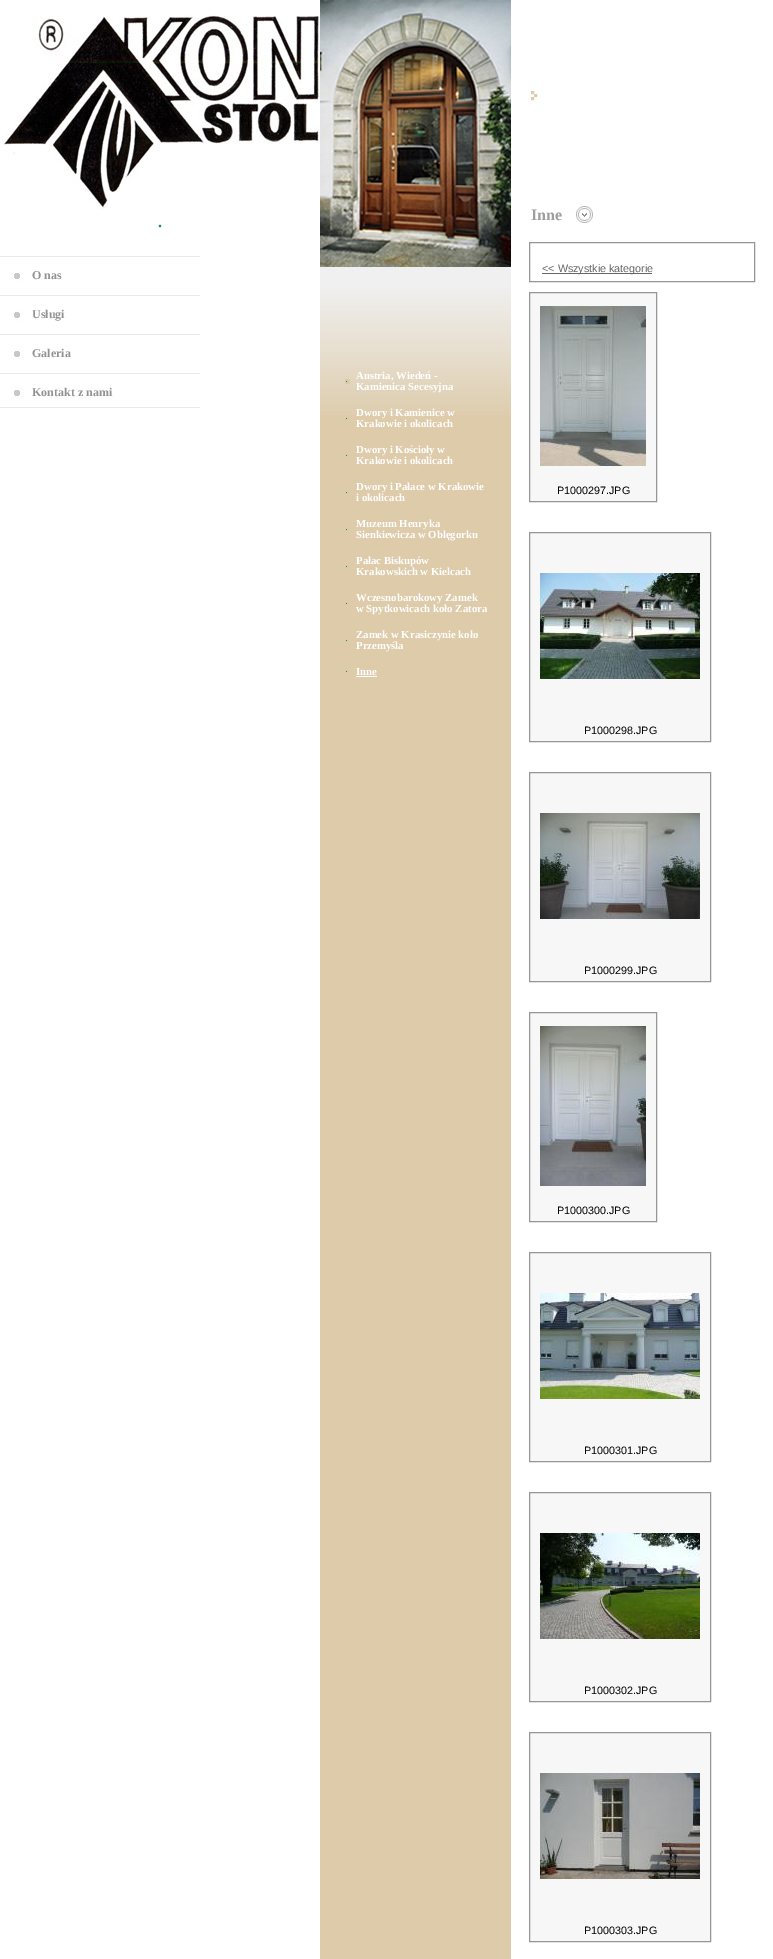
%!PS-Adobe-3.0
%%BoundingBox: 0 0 773 1959
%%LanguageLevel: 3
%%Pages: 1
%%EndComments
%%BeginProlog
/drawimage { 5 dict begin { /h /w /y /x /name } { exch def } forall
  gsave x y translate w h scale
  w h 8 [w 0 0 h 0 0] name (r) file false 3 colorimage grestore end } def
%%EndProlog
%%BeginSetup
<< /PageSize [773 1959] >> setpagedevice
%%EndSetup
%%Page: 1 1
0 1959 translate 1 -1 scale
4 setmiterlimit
1 setgray
0 0 773 1959 rectfill
(images/1.raw) 1 15 319 194 drawimage
0.914 setgray
0 256 200 1 rectfill
(images/2.raw) 11 270 13 13 drawimage
0 295 200 1 rectfill
(images/2.raw) 11 309 13 13 drawimage
0 334 200 1 rectfill
(images/2.raw) 11 348 13 13 drawimage
0 373 200 1 rectfill
(images/2.raw) 11 387 13 13 drawimage
0 407 200 1 rectfill
(images/3.raw) 511 84 27 22 drawimage
(images/4.raw) 568 206 25 17 drawimage
0.588 setgray
529.5 242.5 225 39 rectstroke
0.4 setgray
542 273 110 1 rectfill
0.969 setgray
newpath 529.5 292.5 moveto 656.5 292.5 lineto 656.5 501.5 lineto 529.5 501.5 lineto closepath gsave fill grestore
0.588 setgray
stroke
(images/5.raw) 540 306 106 160 drawimage
0.969 setgray
newpath 529.5 532.5 moveto 710.5 532.5 lineto 710.5 741.5 lineto 529.5 741.5 lineto closepath gsave fill grestore
0.588 setgray
stroke
(images/6.raw) 540 573 160 106 drawimage
0.969 setgray
newpath 529.5 772.5 moveto 710.5 772.5 lineto 710.5 981.5 lineto 529.5 981.5 lineto closepath gsave fill grestore
0.588 setgray
stroke
(images/7.raw) 540 813 160 106 drawimage
0.969 setgray
newpath 529.5 1012.5 moveto 656.5 1012.5 lineto 656.5 1221.5 lineto 529.5 1221.5 lineto closepath gsave fill grestore
0.588 setgray
stroke
(images/8.raw) 540 1026 106 160 drawimage
0.969 setgray
newpath 529.5 1252.5 moveto 710.5 1252.5 lineto 710.5 1461.5 lineto 529.5 1461.5 lineto closepath gsave fill grestore
0.588 setgray
stroke
(images/9.raw) 540 1293 160 106 drawimage
0.969 setgray
newpath 529.5 1492.5 moveto 710.5 1492.5 lineto 710.5 1701.5 lineto 529.5 1701.5 lineto closepath gsave fill grestore
0.588 setgray
stroke
(images/10.raw) 540 1533 160 106 drawimage
0.969 setgray
newpath 529.5 1732.5 moveto 710.5 1732.5 lineto 710.5 1941.5 lineto 529.5 1941.5 lineto closepath gsave fill grestore
0.588 setgray
stroke
(images/11.raw) 540 1773 160 106 drawimage
0.871 0.796 0.667 setrgbcolor
320 415 191 1544 rectfill
(images/12.raw) 320 0 191 415 drawimage
(images/13.raw) 345 379 5 5 drawimage
(images/14.raw) 346 417 2 3 drawimage
(images/14.raw) 346 454 2 3 drawimage
(images/14.raw) 346 491 2 3 drawimage
(images/14.raw) 346 528 2 3 drawimage
(images/14.raw) 346 565 2 3 drawimage
(images/14.raw) 346 602 2 3 drawimage
(images/14.raw) 346 639 2 3 drawimage
(images/14.raw) 346 670 2 3 drawimage
1 setgray
356 676 21 1 rectfill
/LiberationSerif-Bold [16 0 0 -16 0 0] selectfont
0.008 0.58 0.388 setrgbcolor
158 227 moveto (.) show
/LiberationSerif-Bold [12 0 0 -12 0 0] selectfont
0.573 setgray
32 279 moveto (O nas) show
32 318 moveto (Usługi) show
32 357 moveto (Galeria) show
32 396 moveto (Kontakt z nami) show
/LiberationSerif-Bold [16 0 0 -16 0 0] selectfont
0.624 0.616 0.62 setrgbcolor
531 220 moveto (Inne) show
/LiberationSans-Regular [10.75 0 0 -10.75 0 0] selectfont
0.4 setgray
542 272 moveto (<< Wszystkie kategorie) show
0 setgray
557 494 moveto (P1000297.JPG) show
584 734 moveto (P1000298.JPG) show
584 974 moveto (P1000299.JPG) show
557 1214 moveto (P1000300.JPG) show
584 1454 moveto (P1000301.JPG) show
584 1694 moveto (P1000302.JPG) show
584 1934 moveto (P1000303.JPG) show
/LiberationSerif-Bold [10.75 0 0 -10.75 0 0] selectfont
1 setgray
356 379 moveto (Austria, Wiedeń -) show
356 390 moveto (Kamienica Secesyjna) show
356 416 moveto (Dwory i Kamienice w) show
356 427 moveto (Krakowie i okolicach) show
356 453 moveto (Dwory i Kościoły w) show
356 464 moveto (Krakowie i okolicach) show
356 490 moveto (Dwory i Pałace w Krakowie) show
356 501 moveto (i okolicach) show
356 527 moveto (Muzeum Henryka) show
356 538 moveto (Sienkiewicza w Oblęgorku) show
356 564 moveto (Pałac Biskupów) show
356 575 moveto (Krakowskich w Kielcach) show
356 601 moveto (Wczesnobarokowy Zamek) show
356 612 moveto (w Spytkowicach koło Zatora) show
356 638 moveto (Zamek w Krasiczynie koło) show
356 649 moveto (Przemyśla) show
356 675 moveto (Inne) show
showpage
%%EOF
